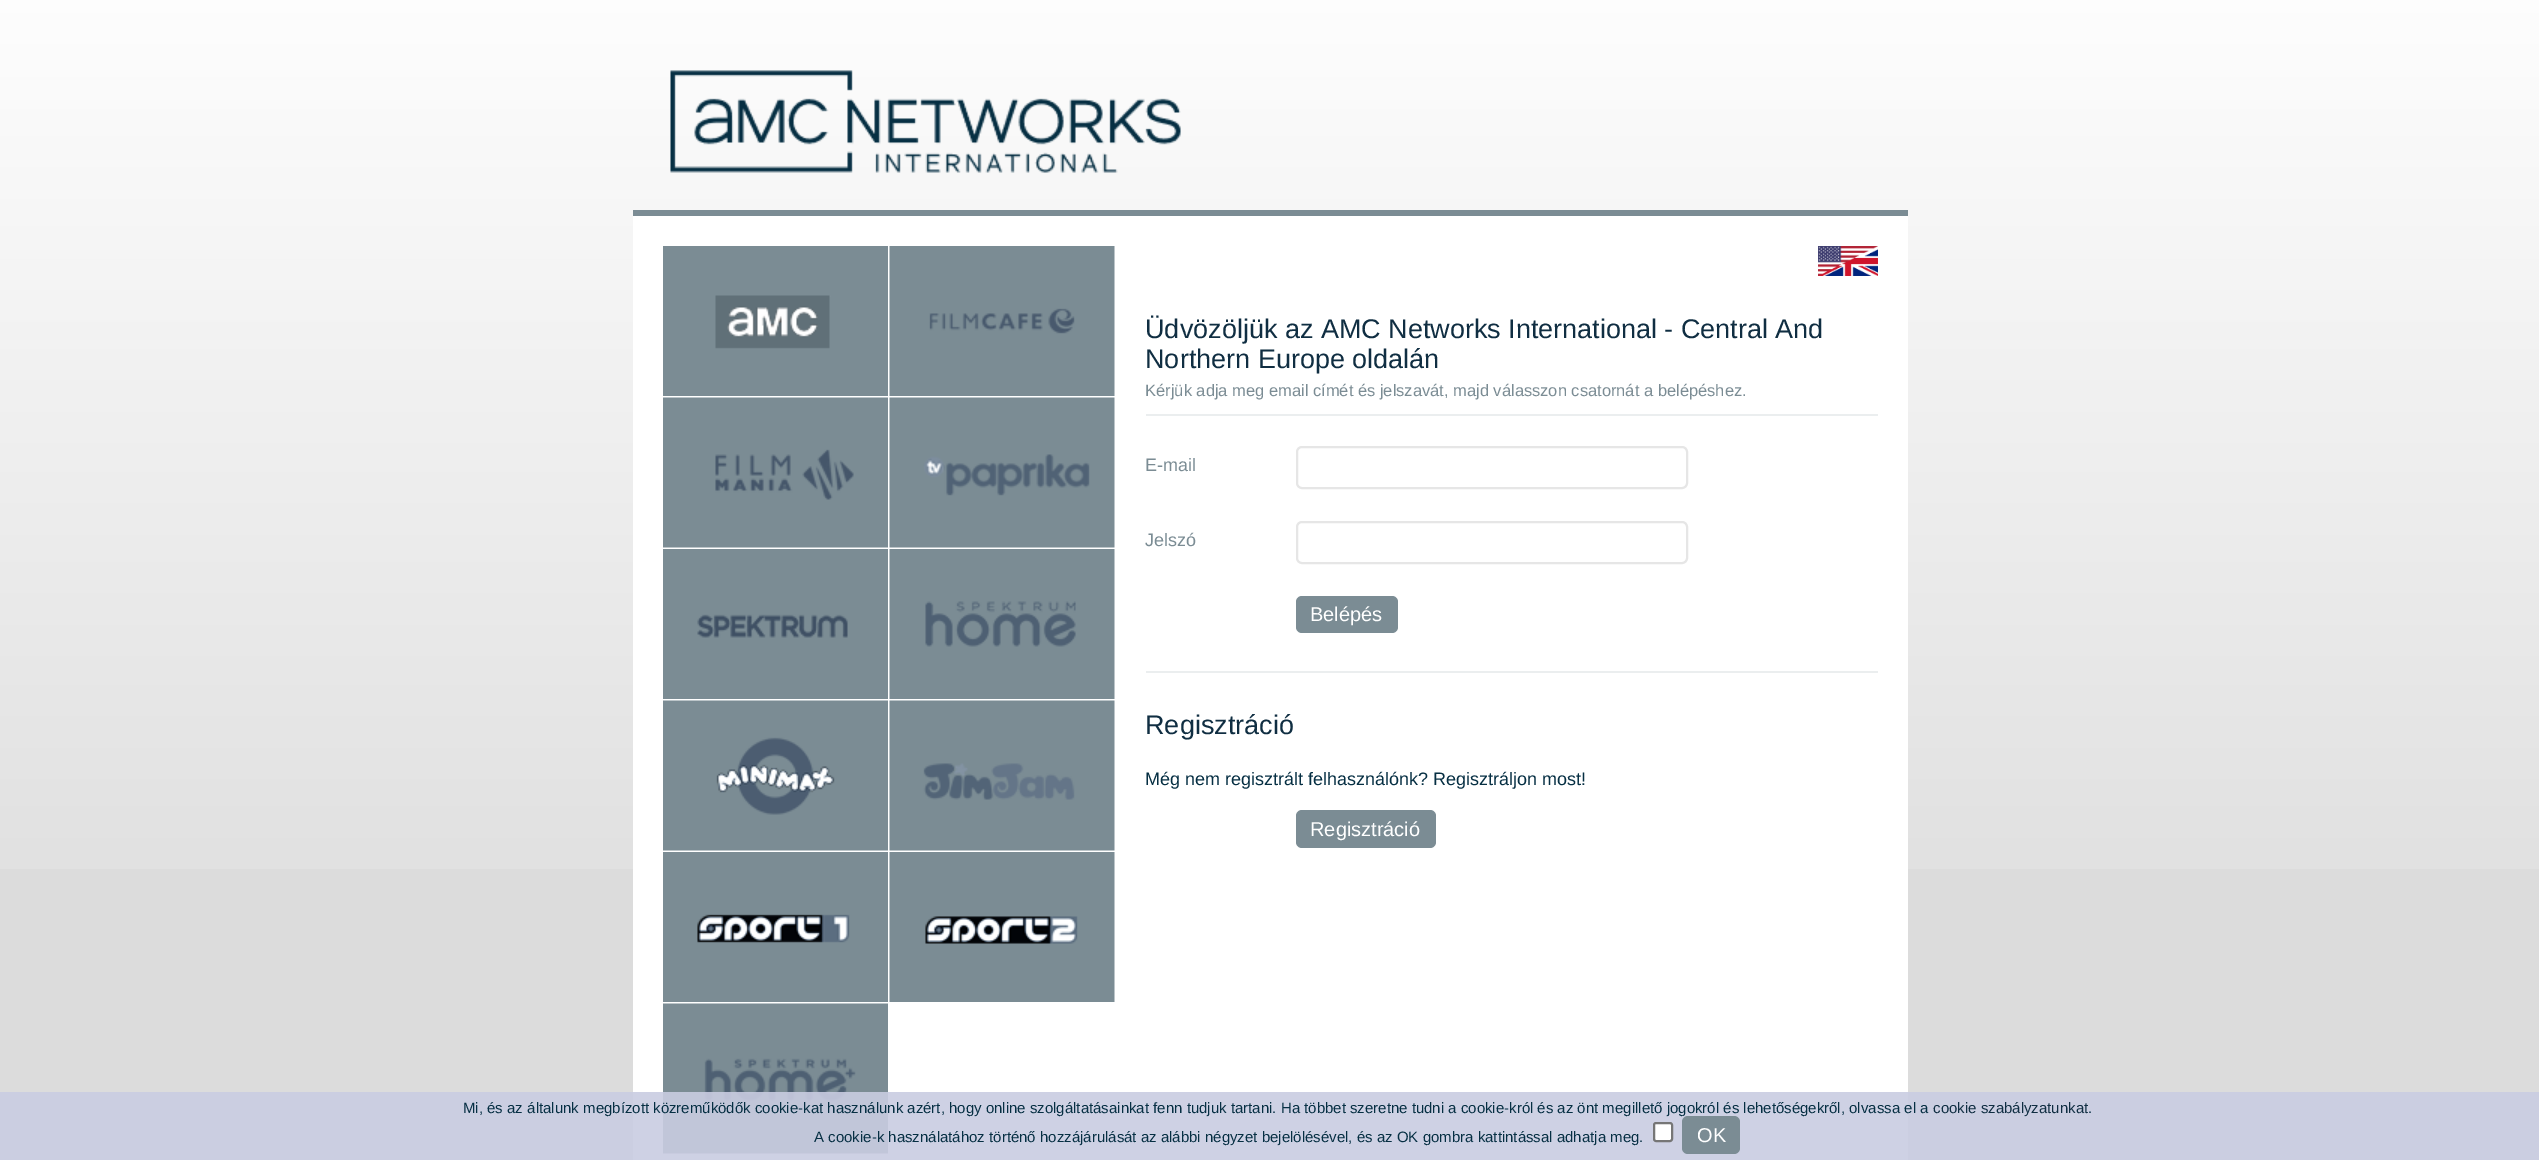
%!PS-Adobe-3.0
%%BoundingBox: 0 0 2539 1160
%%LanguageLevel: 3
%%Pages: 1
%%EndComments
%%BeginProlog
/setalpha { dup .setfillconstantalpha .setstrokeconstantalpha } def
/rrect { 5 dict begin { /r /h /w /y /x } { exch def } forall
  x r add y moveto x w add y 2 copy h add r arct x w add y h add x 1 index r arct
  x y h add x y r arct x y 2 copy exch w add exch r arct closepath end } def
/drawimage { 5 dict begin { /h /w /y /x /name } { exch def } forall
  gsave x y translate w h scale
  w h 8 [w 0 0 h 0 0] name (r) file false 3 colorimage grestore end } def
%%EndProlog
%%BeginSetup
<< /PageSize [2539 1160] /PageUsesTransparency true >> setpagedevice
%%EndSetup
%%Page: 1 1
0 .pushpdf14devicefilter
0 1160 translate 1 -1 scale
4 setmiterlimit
1 setgray
0 0 2539 1160 rectfill
(images/1.raw) 0 0 2539 45 drawimage
0.863 setgray
0 869 2539 291 rectfill
(images/2.raw) 0 45 2539 824 drawimage
(images/3.raw) 670 70 511 103 drawimage
1 setgray
633 216 1275 944 rectfill
0.482 0.549 0.58 setrgbcolor
633 210 1275 6 rectfill
(images/4.raw) 663 246 225 150 drawimage
(images/5.raw) 889 246 226 150 drawimage
(images/6.raw) 663 397 225 151 drawimage
(images/7.raw) 889 397 226 151 drawimage
(images/8.raw) 663 549 225 150 drawimage
(images/9.raw) 889 549 226 150 drawimage
(images/10.raw) 663 700 225 151 drawimage
(images/11.raw) 889 700 226 151 drawimage
(images/12.raw) 663 852 225 150 drawimage
(images/13.raw) 889 852 226 150 drawimage
(images/14.raw) 663 1003 225 151 drawimage
(images/15.raw) 1818 246 60 30 drawimage
0.922 0.933 0.937 setrgbcolor
1146 414 732 2 rectfill
0.902 setgray
2 setlinewidth
1297 447 390 41 5 rrect stroke
1297 522 390 41 5 rrect stroke
0.482 0.549 0.58 setrgbcolor
1296 596 102 37 6 rrect fill
0.922 0.933 0.937 setrgbcolor
1146 671 732 2 rectfill
0.482 0.549 0.58 setrgbcolor
1296 810 140 38 6 rrect fill
0.9 setalpha
0.788 0.8 0.882 setrgbcolor
0 1092 2539 68 rectfill
1 setalpha
1 setgray
1654 1123 18 18 2 rrect gsave fill grestore
0.463 setgray
stroke
/LiberationSans-Regular [27 0 0 -27 0 0] selectfont
0.063 0.18 0.259 setrgbcolor
1145 338 moveto (Üdvözöljük az AMC Networks International - Central And) show
1145 368 moveto (Northern Europe oldalán) show
/LiberationSans-Regular [16.5 0 0 -16.5 0 0] selectfont
0.482 0.549 0.58 setrgbcolor
1145 396 moveto (Kérjük adja meg email címét és jelszavát, majd válasszon csatornát a belépéshez.) show
/LiberationSans-Regular [18 0 0 -18 0 0] selectfont
1145 471 moveto (E-mail) show
1145 546 moveto (Jelszó) show
/LiberationSans-Regular [20 0 0 -20 0 0] selectfont
1 setgray
1310 621 moveto (Belépés) show
/LiberationSans-Regular [27 0 0 -27 0 0] selectfont
0.063 0.18 0.259 setrgbcolor
1145 734 moveto (Regisztráció) show
/LiberationSans-Regular [18 0 0 -18 0 0] selectfont
0.024 0.184 0.263 setrgbcolor
1145 785 moveto (Még nem regisztrált felhasználónk? Regisztráljon most!) show
/LiberationSans-Regular [20 0 0 -20 0 0] selectfont
1 setgray
1310 836 moveto (Regisztráció) show
/LiberationSans-Regular [15 0 0 -15 0 0] selectfont
0.024 0.184 0.263 setrgbcolor
463 1113 moveto (Mi, és az általunk megbízott közreműködők cookie-kat használunk azért, hogy online szolgáltatásainkat fenn tudjuk tartani. Ha többet szeretne tudni a cookie-król és az önt megillető jogokról és lehetőségekről, olvassa el a) show
0.063 0.18 0.259 setrgbcolor
1933 1113 moveto (cookie szabályzatunkat) show
0.024 0.184 0.263 setrgbcolor
2088 1113 moveto (.) show
814 1142 moveto (A cookie-k használatához történő hozzájárulását az alábbi négyzet bejelölésével, és az OK gombra kattintással adhatja meg.) show
0.482 0.549 0.58 setrgbcolor
1682 1116 58 38 6 rrect fill
/LiberationSans-Regular [20 0 0 -20 0 0] selectfont
1 setgray
1697 1142 moveto (OK) show
.poppdf14devicefilter showpage
%%EOF
